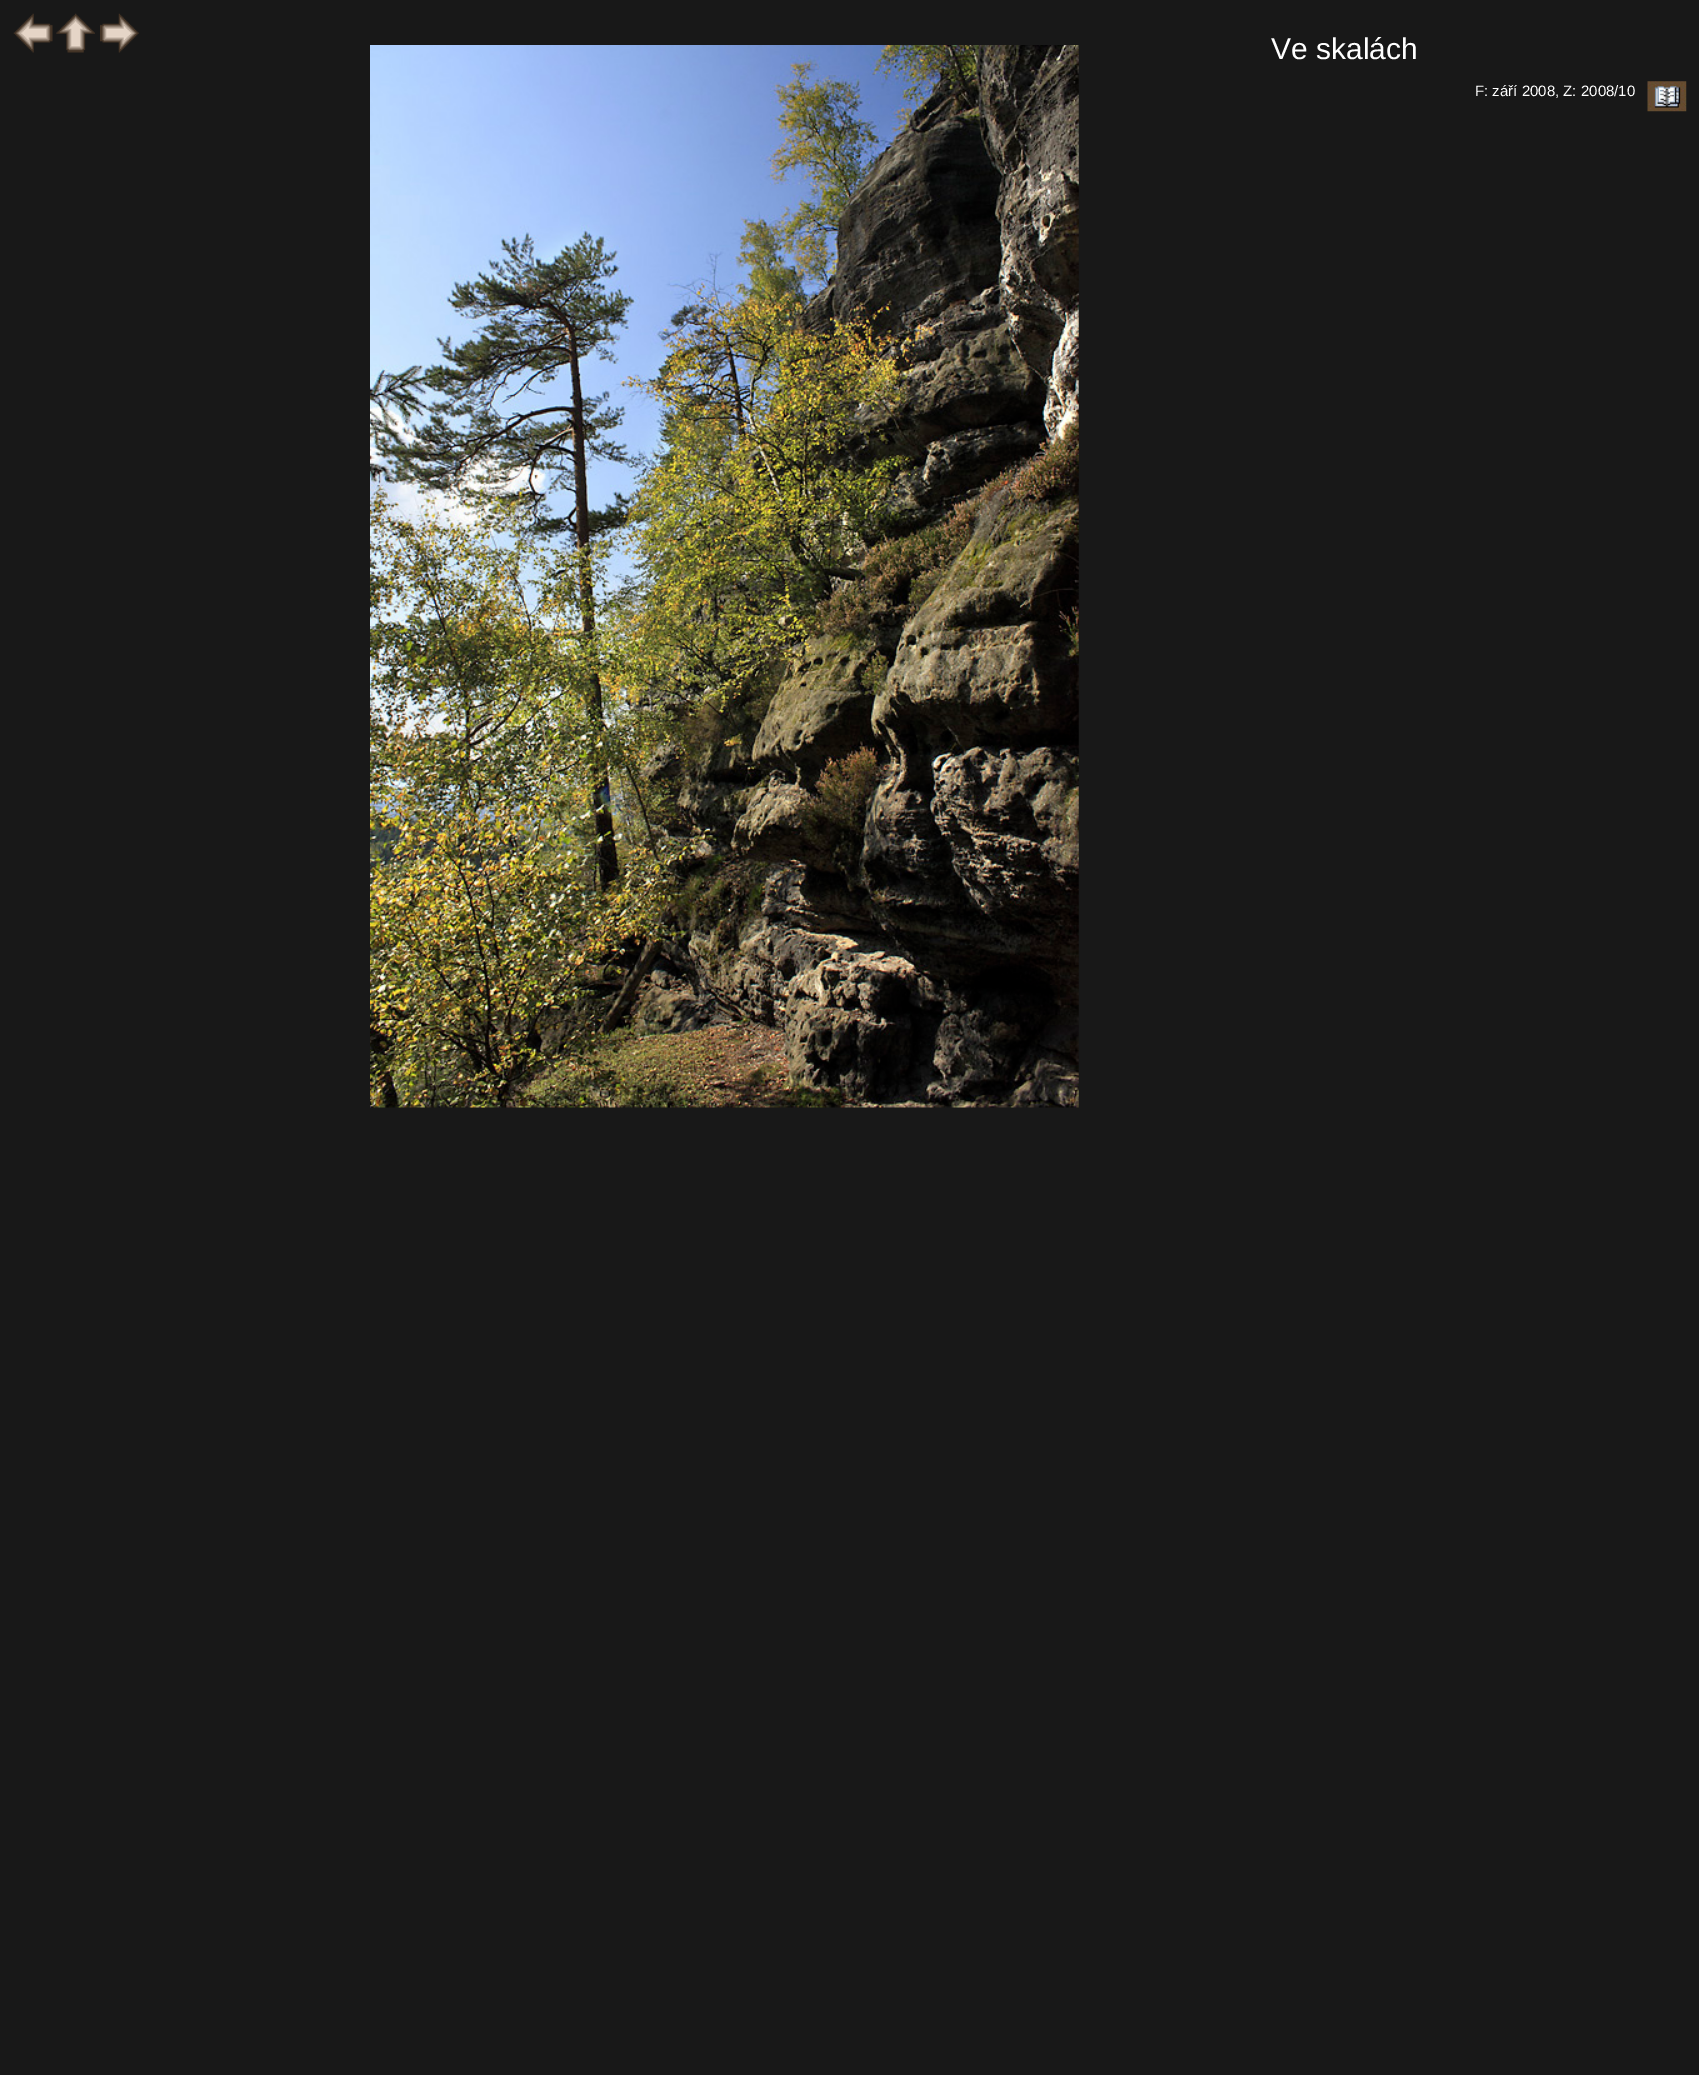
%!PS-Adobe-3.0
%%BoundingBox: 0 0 1699 2075
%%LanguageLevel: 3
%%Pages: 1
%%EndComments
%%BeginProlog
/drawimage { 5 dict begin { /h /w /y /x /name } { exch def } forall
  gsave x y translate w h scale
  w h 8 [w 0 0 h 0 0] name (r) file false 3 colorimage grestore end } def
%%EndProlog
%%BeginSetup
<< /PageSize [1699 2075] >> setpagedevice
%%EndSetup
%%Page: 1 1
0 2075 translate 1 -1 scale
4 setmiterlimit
0.094 setgray
0 0 1699 2075 rectfill
(images/1.raw) 13 13 40 40 drawimage
(images/2.raw) 56 13 39 40 drawimage
(images/3.raw) 100 13 39 40 drawimage
(images/4.raw) 370 45 709 1063 drawimage
(images/5.raw) 1647 81 40 31 drawimage
/LiberationSans-Regular [30 0 0 -30 0 0] selectfont
1 setgray
1271 59 moveto (Ve skalách) show
/LiberationSans-Regular [15 0 0 -15 0 0] selectfont
1475 96 moveto (F: září 2008, Z: 2008/10) show
showpage
%%EOF
